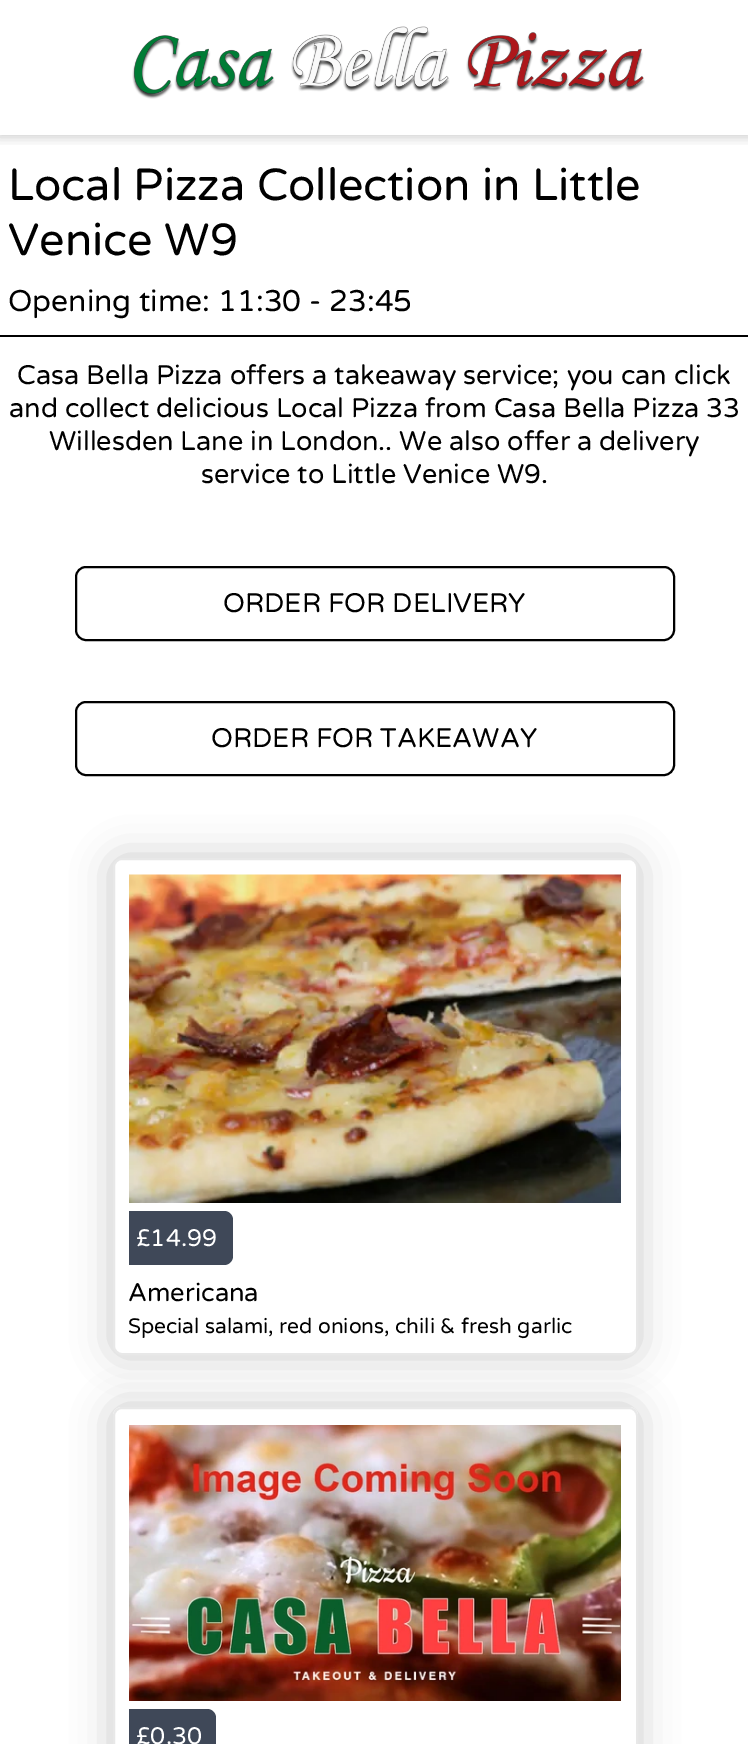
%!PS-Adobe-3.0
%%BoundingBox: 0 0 748 1744
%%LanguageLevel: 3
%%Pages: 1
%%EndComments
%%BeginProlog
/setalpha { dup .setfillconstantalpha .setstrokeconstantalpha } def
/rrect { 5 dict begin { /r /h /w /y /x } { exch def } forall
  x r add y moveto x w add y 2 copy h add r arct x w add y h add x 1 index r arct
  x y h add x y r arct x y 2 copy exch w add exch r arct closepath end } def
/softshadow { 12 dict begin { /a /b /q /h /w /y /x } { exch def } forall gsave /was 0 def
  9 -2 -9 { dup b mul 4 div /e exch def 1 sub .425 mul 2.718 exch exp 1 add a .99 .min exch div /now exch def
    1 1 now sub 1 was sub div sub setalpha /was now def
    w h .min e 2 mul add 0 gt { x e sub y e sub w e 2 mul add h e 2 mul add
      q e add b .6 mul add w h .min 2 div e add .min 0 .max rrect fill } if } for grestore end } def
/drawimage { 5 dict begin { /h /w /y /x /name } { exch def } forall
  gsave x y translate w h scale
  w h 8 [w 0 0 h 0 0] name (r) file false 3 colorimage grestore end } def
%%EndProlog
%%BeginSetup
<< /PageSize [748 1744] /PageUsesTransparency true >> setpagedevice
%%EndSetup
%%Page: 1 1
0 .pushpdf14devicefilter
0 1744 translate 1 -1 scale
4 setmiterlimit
1 setgray
0 0 748 1744 rectfill
gsave
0 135 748 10 rectclip
0.208 setgray
-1 -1 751 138 0 6 0.25 softshadow
grestore
(images/1.raw) 132 26 513 73 drawimage
0 setgray
0 335 748 2 rectfill
2 setlinewidth
76 567 598 73 10 rrect stroke
76 702 598 73 10 rrect stroke
0.208 setgray
111 857 528 499 11 19 0.25 softshadow
1 setgray
114 859 523 495 8 rrect gsave fill grestore
0.91 setgray
stroke
(images/2.raw) 129 874 492 329 drawimage
0.247 0.282 0.345 setrgbcolor
newpath 129 1211 moveto 224 1211 lineto 229 1211 233 1215 233 1220 curveto 233 1256 lineto 233 1261 229 1265 224 1265 curveto 129 1265 lineto closepath fill
0.208 setgray
111 1406 528 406 11 19 0.25 softshadow
1 setgray
newpath 122 1407 moveto 629 1407 lineto 634 1407 638 1411 638 1416 curveto 638 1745 lineto 113 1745 lineto 113 1416 lineto 113 1411 117 1407 122 1407 curveto closepath fill
0.91 setgray
114 1408 523 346 8 rrect stroke
(images/3.raw) 129 1425 492 276 drawimage
0.247 0.282 0.345 setrgbcolor
newpath 129 1709 moveto 207 1709 lineto 212 1709 216 1713 216 1718 curveto 216 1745 lineto 129 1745 lineto closepath fill
/VarelaRound-Regular [45 0 0 -45 0 0] selectfont
0 setgray
8 200 moveto (Local Pizza Collection in Little) show
8 255 moveto (Venice W9) show
/VarelaRound-Regular [30 0 0 -30 0 0] selectfont
8 311 moveto (Opening time: 11:30 - 23:45) show
/VarelaRound-Regular [27 0 0 -27 0 0] selectfont
17 384 moveto (Casa Bella Pizza offers a takeaway service; you can click) show
9 417 moveto (and collect delicious Local Pizza from Casa Bella Pizza 33) show
49 450 moveto (Willesden Lane in London.. We also offer a delivery) show
201 483 moveto (service to Little Venice W9.) show
223 612 moveto (ORDER FOR DELIVERY) show
211 747 moveto (ORDER FOR TAKEAWAY) show
/VarelaRound-Regular [24 0 0 -24 0 0] selectfont
1 setgray
136 1246 moveto (£14.99) show
/VarelaRound-Regular [25.5 0 0 -25.5 0 0] selectfont
0 setgray
128 1301 moveto (Americana) show
/VarelaRound-Regular [21 0 0 -21 0 0] selectfont
128 1333 moveto (Special salami, red onions, chili & fresh garlic) show
/VarelaRound-Regular [24 0 0 -24 0 0] selectfont
1 setgray
136 1744 moveto (£0.30) show
.poppdf14devicefilter showpage
%%EOF
